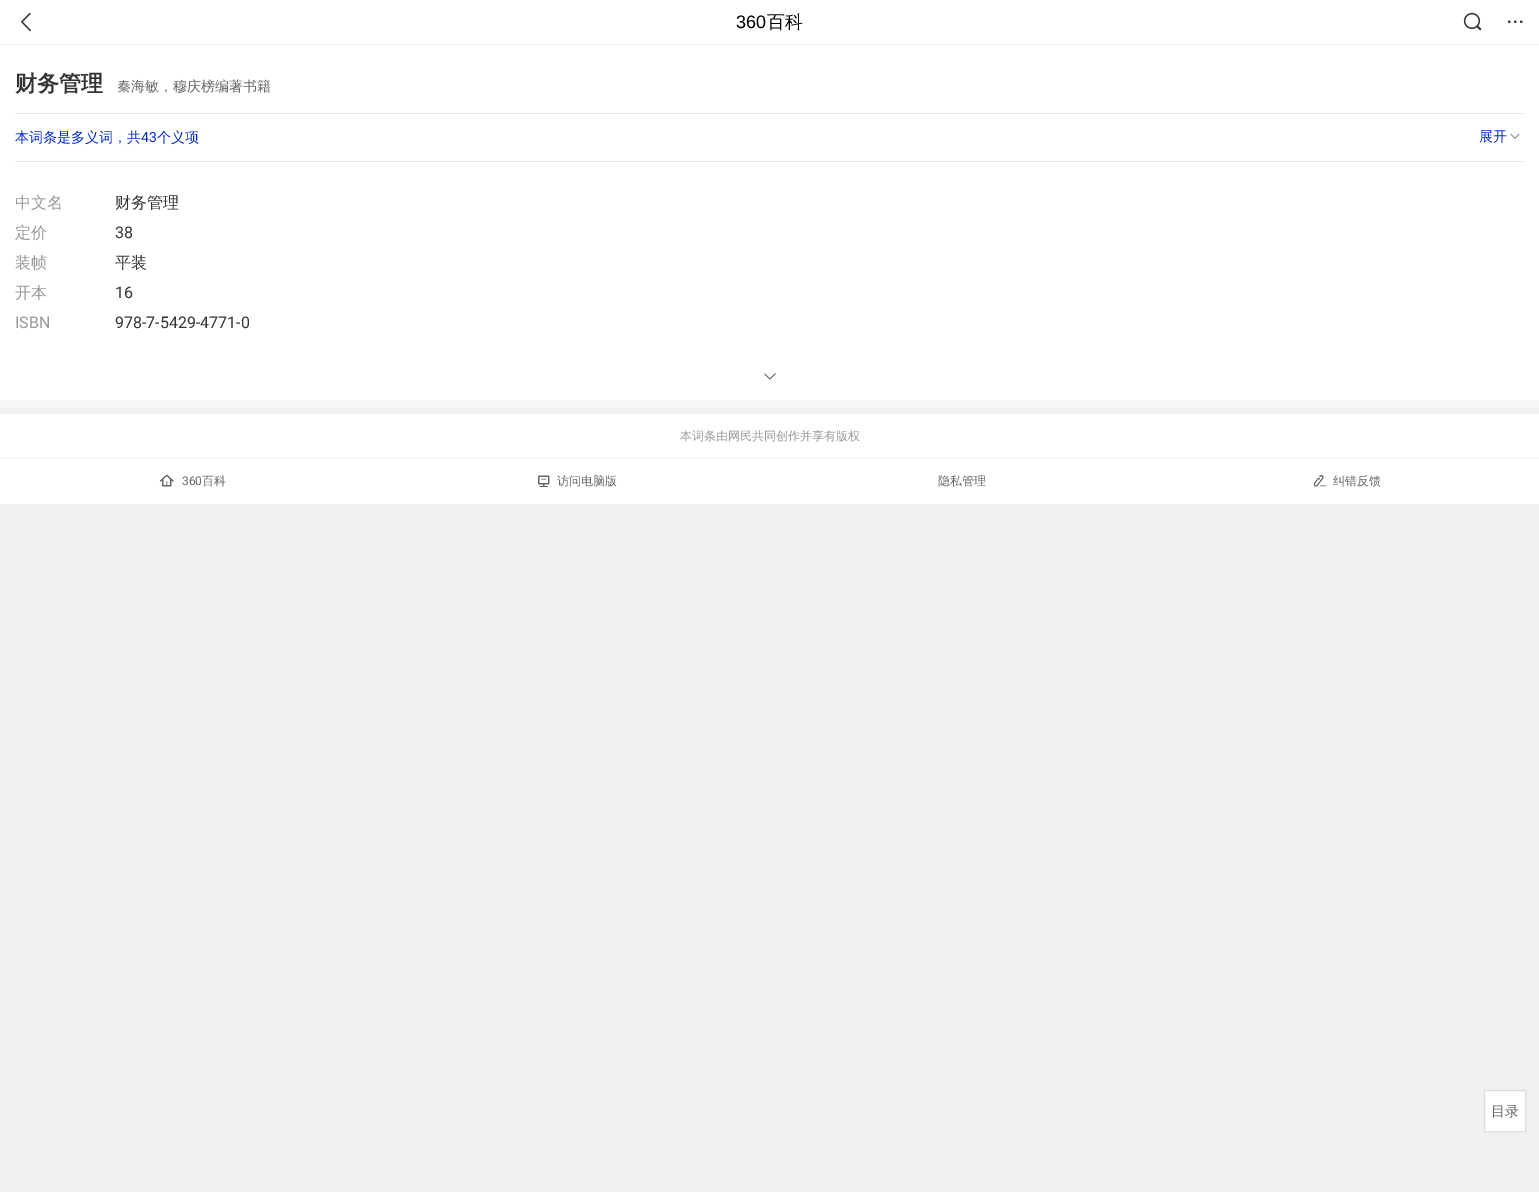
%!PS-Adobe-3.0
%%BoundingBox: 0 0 1539 1192
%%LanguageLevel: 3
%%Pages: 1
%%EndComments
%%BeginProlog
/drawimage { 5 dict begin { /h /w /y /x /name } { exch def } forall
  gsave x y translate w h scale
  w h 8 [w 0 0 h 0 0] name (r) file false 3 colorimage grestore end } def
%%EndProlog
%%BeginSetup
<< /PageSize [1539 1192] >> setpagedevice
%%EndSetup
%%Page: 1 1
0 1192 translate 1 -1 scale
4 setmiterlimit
0.941 setgray
0 0 1539 1192 rectfill
1 setgray
0 45 1539 459 rectfill
0 0 1539 44 rectfill
0.929 setgray
0 44 1539 1 rectfill
(images/1.raw) 21 12 10 20 drawimage
(images/2.raw) 1463 12 19 19 drawimage
0.2 setgray
newpath 1509.2 21.8 1.2 0 360 arc closepath fill
newpath 1515.2 21.8 1.2 0 360 arc closepath fill
newpath 1521.2 21.8 1.2 0 360 arc closepath fill
1 setgray
newpath 1484.5 1090.5 moveto 1525.5 1090.5 lineto 1525.5 1131.5 lineto 1484.5 1131.5 lineto closepath gsave fill grestore
0.867 setgray
stroke
0.918 setgray
15 113 1509 1 rectfill
(images/3.raw) 1510 133 10 6 drawimage
15 161 1509 1 rectfill
0.973 setgray
0 400 1539 8 rectfill
(images/4.raw) 764 373 12 7 drawimage
0.949 setgray
0 408 1539 6 rectfill
0 458 1539 1 rectfill
(images/5.raw) 159 474 15 13 drawimage
(images/6.raw) 538 475 12 12 drawimage
(images/7.raw) 1313 474 13 13 drawimage
/LiberationSans-Regular [18 0 0 -18 0 0] selectfont
0 setgray
736 28 moveto (360) show
/WenQuanYiZenHei-Medium [18 0 0 -18 0 0] selectfont
767 28 moveto (百科) show
/WenQuanYiZenHei-Medium [14 0 0 -14 0 0] selectfont
0.4 setgray
1491 1116 moveto (目录) show
/WenQuanYiZenHei-Bold [22 0 0 -22 0 0] selectfont
0.2 setgray
15 91 moveto (财务管理) show
/WenQuanYiZenHei-Medium [14 0 0 -14 0 0] selectfont
0.4 setgray
117 91 moveto (秦海敏，穆庆榜编著书籍) show
0 0.161 0.816 setrgbcolor
15 142 moveto (本词条是多义词，共) show
/Roboto-Regular [14 0 0 -14 0 0] selectfont
141 142 moveto (43) show
/WenQuanYiZenHei-Medium [14 0 0 -14 0 0] selectfont
157 142 moveto (个义项) show
1479 141 moveto (展开) show
/WenQuanYiZenHei-Medium [16 0 0 -16 0 0] selectfont
0.6 setgray
15 208 moveto (中文名) show
0.2 setgray
115 208 moveto (财务管理) show
0.6 setgray
15 238 moveto (定价) show
/Roboto-Regular [16 0 0 -16 0 0] selectfont
0.2 setgray
115 238 moveto (38) show
/WenQuanYiZenHei-Medium [16 0 0 -16 0 0] selectfont
0.6 setgray
15 268 moveto (装帧) show
0.2 setgray
115 268 moveto (平装) show
0.6 setgray
15 298 moveto (开本) show
/Roboto-Regular [16 0 0 -16 0 0] selectfont
0.2 setgray
115 298 moveto (16) show
0.6 setgray
15 328 moveto (ISBN) show
0.2 setgray
115 328 moveto (978-7-5429-4771-0) show
/WenQuanYiZenHei-Medium [12 0 0 -12 0 0] selectfont
0.6 setgray
680 440 moveto (本词条由网民共同创作并享有版权) show
/Roboto-Regular [12 0 0 -12 0 0] selectfont
0.4 setgray
182 485 moveto (360) show
/WenQuanYiZenHei-Medium [12 0 0 -12 0 0] selectfont
202 485 moveto (百科) show
557 485 moveto (访问电脑版) show
938 485 moveto (隐私管理) show
1333 485 moveto (纠错反馈) show
showpage
%%EOF
